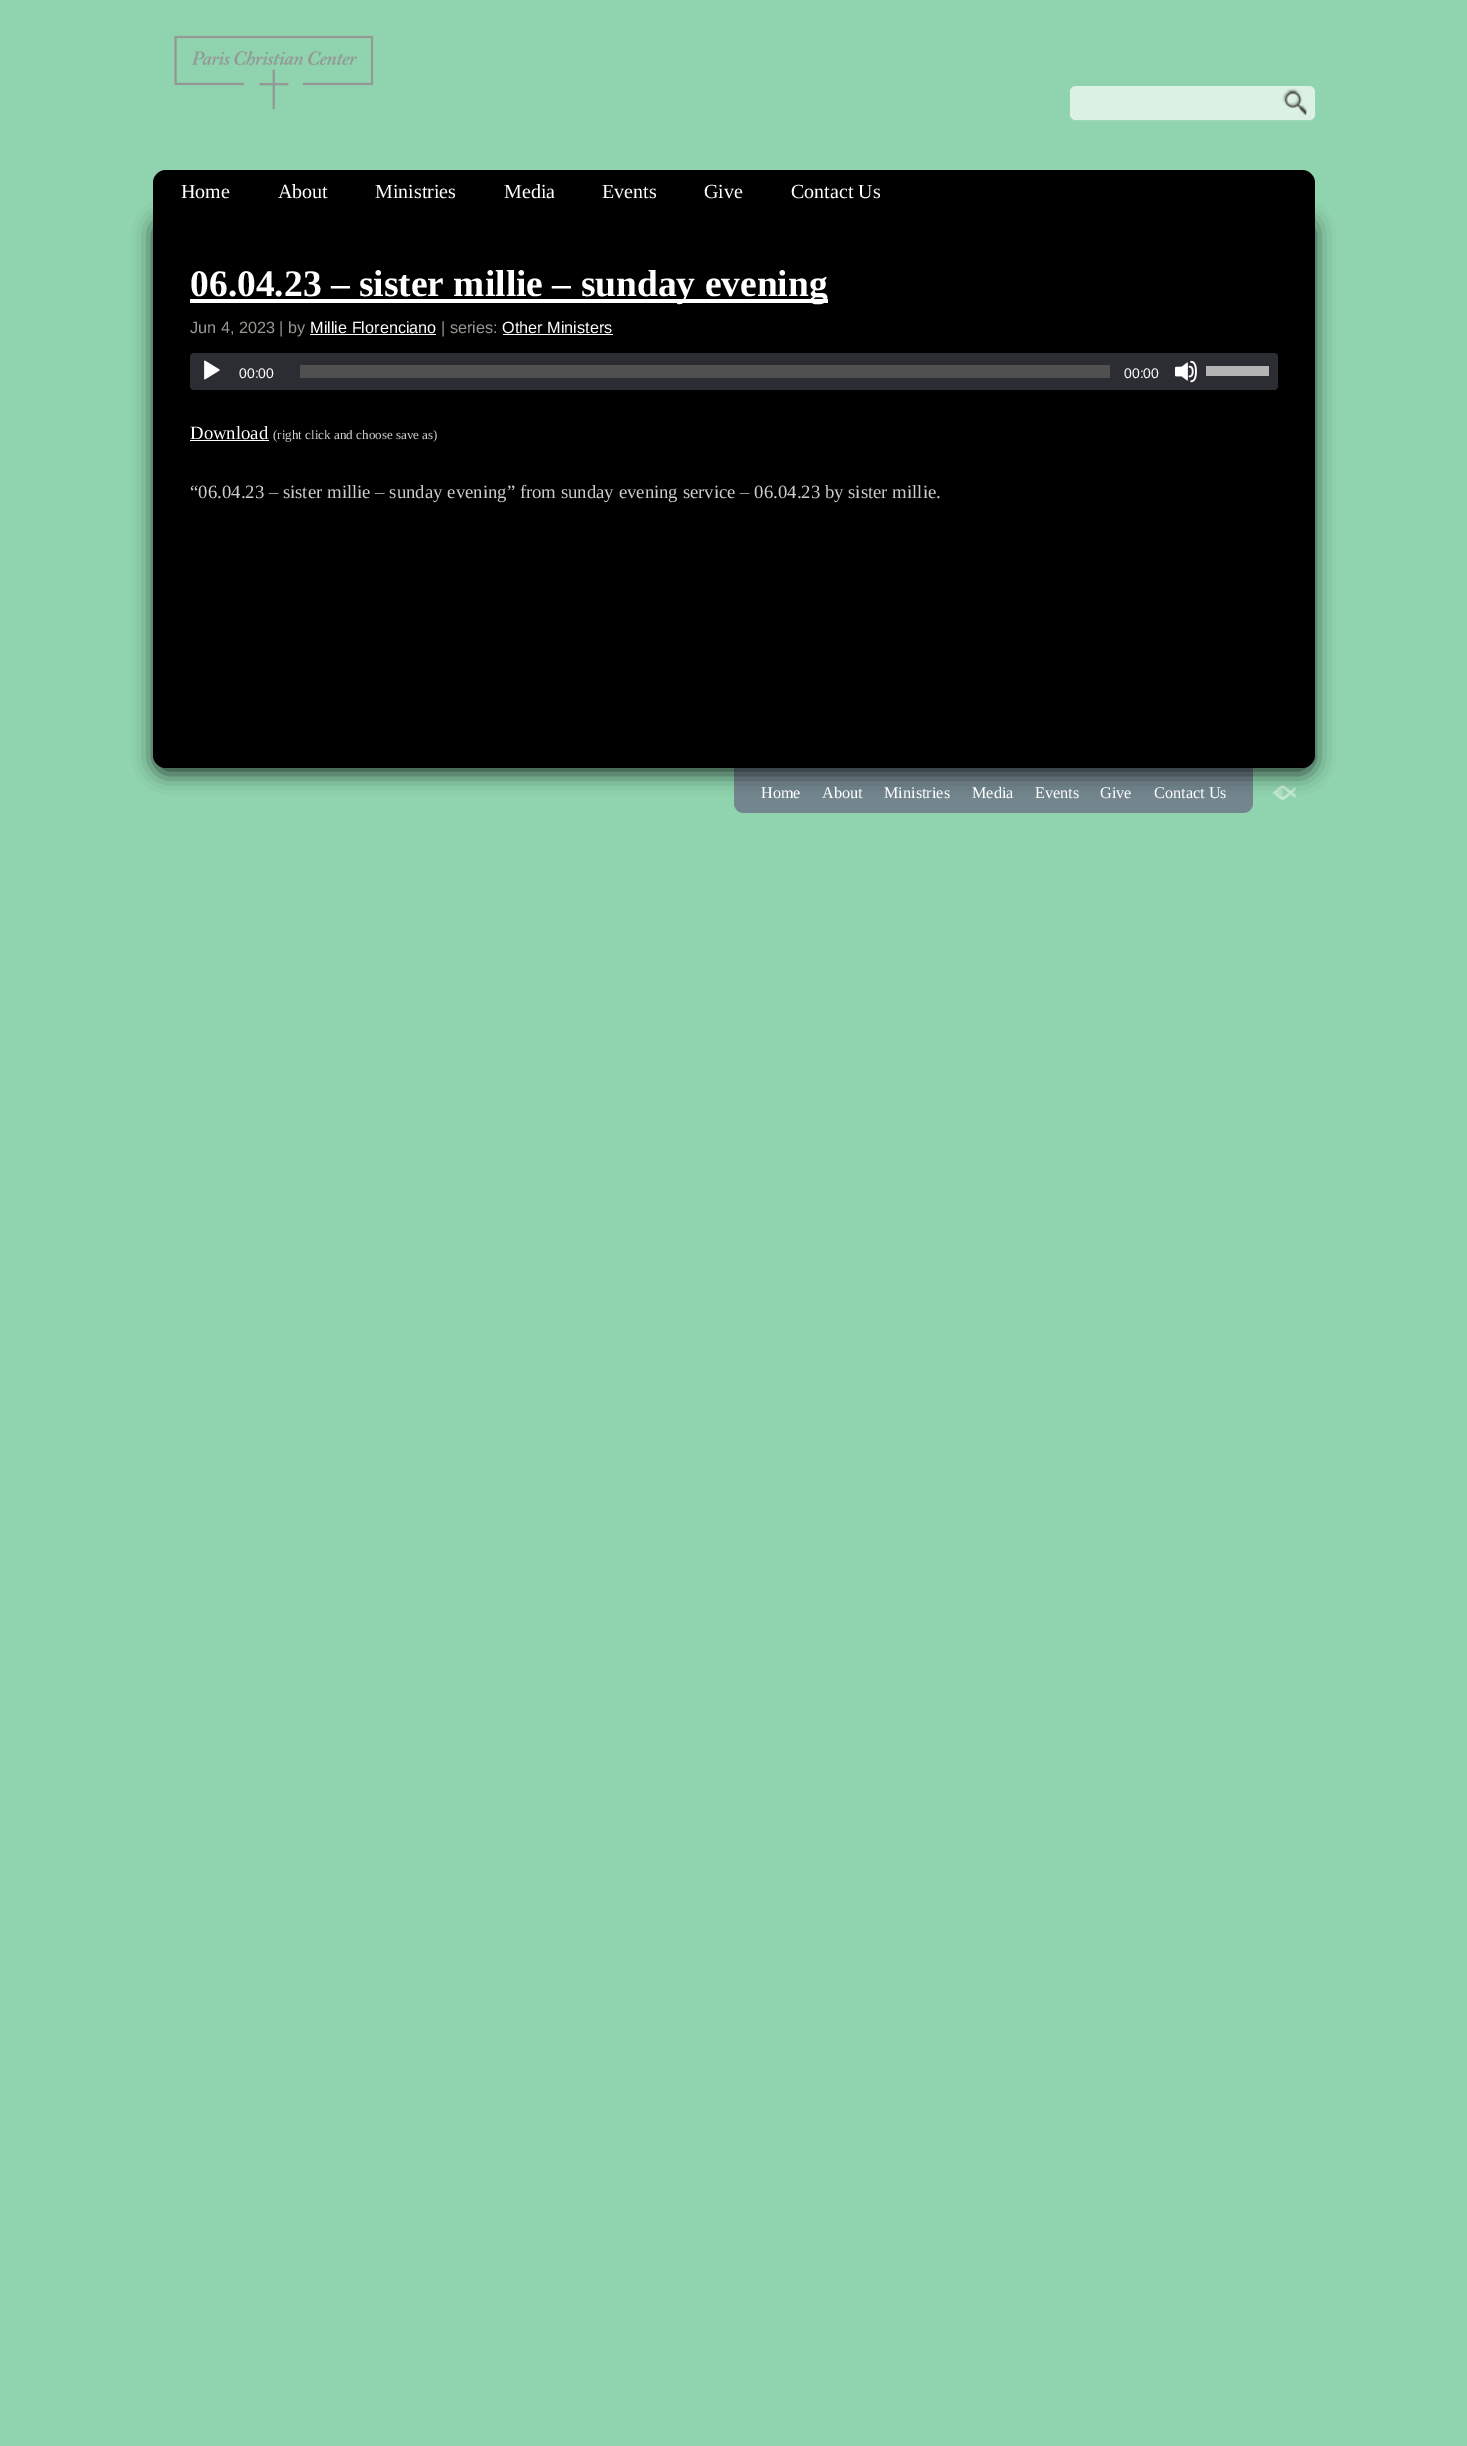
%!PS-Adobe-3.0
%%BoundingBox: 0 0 1467 2446
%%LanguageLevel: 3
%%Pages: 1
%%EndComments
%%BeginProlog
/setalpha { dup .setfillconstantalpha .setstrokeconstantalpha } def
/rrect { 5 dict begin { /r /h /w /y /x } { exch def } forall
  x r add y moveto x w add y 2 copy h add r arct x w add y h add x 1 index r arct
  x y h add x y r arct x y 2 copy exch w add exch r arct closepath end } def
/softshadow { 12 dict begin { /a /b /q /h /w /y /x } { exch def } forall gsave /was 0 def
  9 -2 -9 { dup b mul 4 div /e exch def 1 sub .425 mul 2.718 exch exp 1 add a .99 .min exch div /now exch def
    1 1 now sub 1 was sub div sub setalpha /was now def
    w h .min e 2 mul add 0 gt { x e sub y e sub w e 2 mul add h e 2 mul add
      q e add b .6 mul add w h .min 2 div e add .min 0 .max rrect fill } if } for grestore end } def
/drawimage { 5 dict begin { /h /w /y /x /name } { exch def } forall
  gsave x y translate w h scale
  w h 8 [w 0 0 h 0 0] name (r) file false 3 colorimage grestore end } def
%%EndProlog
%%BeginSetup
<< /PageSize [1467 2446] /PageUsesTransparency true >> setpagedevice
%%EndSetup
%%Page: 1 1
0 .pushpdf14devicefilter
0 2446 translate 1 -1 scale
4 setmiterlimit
0.561 0.831 0.682 setrgbcolor
0 0 1467 2446 rectfill
(images/1.raw) 174 35 200 75 drawimage
gsave
newpath 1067 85 moveto 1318 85 lineto 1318 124 lineto 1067 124 lineto closepath 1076 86 moveto 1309 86 lineto 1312.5 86 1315 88.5 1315 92 curveto 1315 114 lineto 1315 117.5 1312.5 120 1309 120 curveto 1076 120 lineto 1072.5 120 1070 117.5 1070 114 curveto 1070 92 lineto 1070 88.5 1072.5 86 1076 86 curveto closepath eoclip newpath
1 setgray
1070 88 245 33 6 0.5 0.15 softshadow
grestore
0.67 setalpha
1 setgray
1070 86 245 34 6 rrect fill
1 setalpha
(images/2.raw) 1282 88 26 28 drawimage
0.451 0.525 0.553 setrgbcolor
newpath 734 768 moveto 1253 768 lineto 1253 803 lineto 1253 808.5 1248.5 813 1243 813 curveto 744 813 lineto 738.5 813 734 808.5 734 803 curveto closepath fill
(images/5.raw) 1272 785 24 16 drawimage
0 setgray
153 218 1162 556 13 9.5 0.7 softshadow
newpath 166 170 moveto 1302 170 lineto 1309 170 1315 176 1315 183 curveto 1315 211 lineto 153 211 lineto 153 183 lineto 153 176 159 170 166 170 curveto closepath fill
newpath 153 211 moveto 1315 211 lineto 1315 755 lineto 1315 762 1309 768 1302 768 curveto 166 768 lineto 159 768 153 762 153 755 curveto closepath fill
1 setgray
190 299 638 4 rectfill
310 334 126 1 rectfill
503 334 110 1 rectfill
0.173 0.176 0.2 setrgbcolor
190 353 1088 37 4 rrect fill
(images/3.raw) 204 360 16 20 drawimage
0.314 setgray
300 365 810 13 rectfill
(images/4.raw) 1175 360 22 23 drawimage
0.706 setgray
1206 366 63 10 rectfill
1 setgray
190 440 79 1 rectfill
/LiberationSerif-Regular [20 0 0 -20 0 0] selectfont
181 198 moveto (Home) show
278 198 moveto (About) show
375 198 moveto (Ministries) show
504 198 moveto (Media) show
602 198 moveto (Events) show
704 198 moveto (Give) show
791 198 moveto (Contact Us) show
/LiberationSerif-Bold [37.5 0 0 -37.5 0 0] selectfont
190 296 moveto (06.04.23 – sister millie – sunday evening) show
/LiberationSans-Regular [16.25 0 0 -16.25 0 0] selectfont
0.6 0.592 0.573 setrgbcolor
190 333 moveto (Jun 4, 2023 | by) show
1 setgray
310 333 moveto (Millie Florenciano) show
0.6 0.592 0.573 setrgbcolor
441 333 moveto (| series:) show
1 setgray
502 333 moveto (Other Ministers) show
/LiberationSans-Regular [14 0 0 -14 0 0] selectfont
239 378 moveto (00:00) show
1124 378 moveto (00:00) show
/LiberationSerif-Regular [18.75 0 0 -18.75 0 0] selectfont
190 439 moveto (Download) show
/LiberationSerif-Regular [13.1 0 0 -13.1 0 0] selectfont
0.8 setgray
273 439 moveto (\(right click and choose save as\)) show
/LiberationSerif-Regular [18.75 0 0 -18.75 0 0] selectfont
190 498 moveto (“06.04.23 – sister millie – sunday evening” from sunday evening service – 06.04.23 by sister millie.) show
/LiberationSerif-Regular [16.25 0 0 -16.25 0 0] selectfont
1 setgray
761 798 moveto (Home) show
822 798 moveto (About) show
884 798 moveto (Ministries) show
972 798 moveto (Media) show
1035 798 moveto (Events) show
1100 798 moveto (Give) show
1154 798 moveto (Contact Us) show
.poppdf14devicefilter showpage
%%EOF
